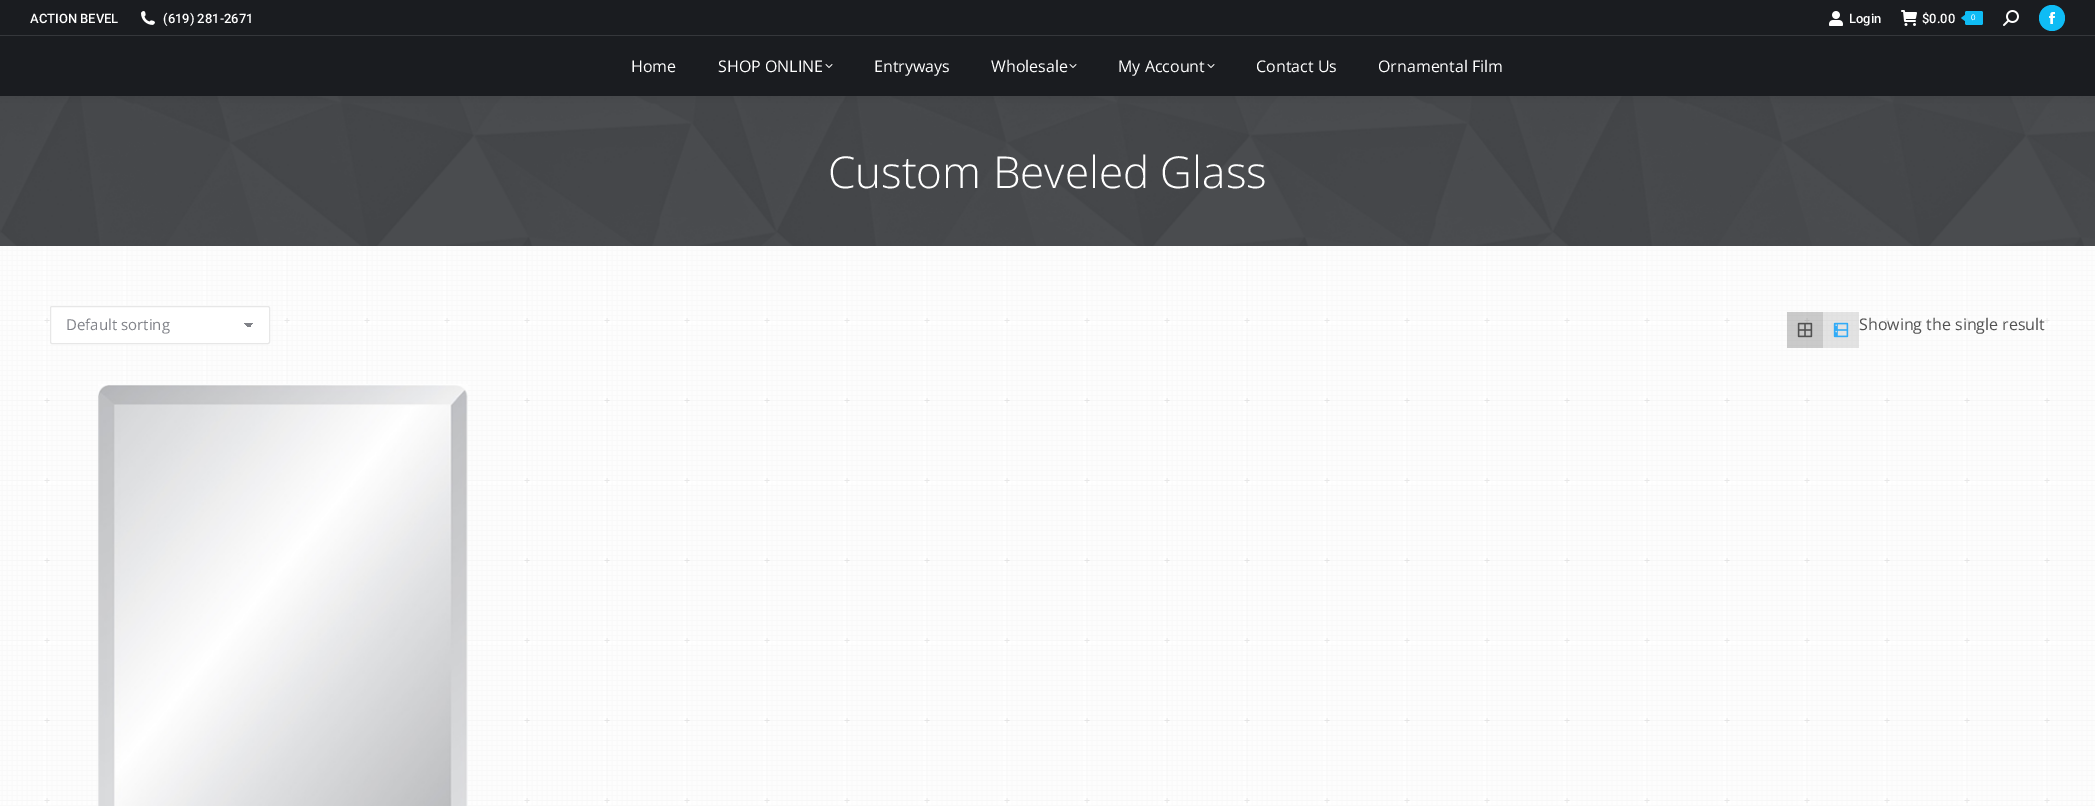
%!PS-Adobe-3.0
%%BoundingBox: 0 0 2095 806
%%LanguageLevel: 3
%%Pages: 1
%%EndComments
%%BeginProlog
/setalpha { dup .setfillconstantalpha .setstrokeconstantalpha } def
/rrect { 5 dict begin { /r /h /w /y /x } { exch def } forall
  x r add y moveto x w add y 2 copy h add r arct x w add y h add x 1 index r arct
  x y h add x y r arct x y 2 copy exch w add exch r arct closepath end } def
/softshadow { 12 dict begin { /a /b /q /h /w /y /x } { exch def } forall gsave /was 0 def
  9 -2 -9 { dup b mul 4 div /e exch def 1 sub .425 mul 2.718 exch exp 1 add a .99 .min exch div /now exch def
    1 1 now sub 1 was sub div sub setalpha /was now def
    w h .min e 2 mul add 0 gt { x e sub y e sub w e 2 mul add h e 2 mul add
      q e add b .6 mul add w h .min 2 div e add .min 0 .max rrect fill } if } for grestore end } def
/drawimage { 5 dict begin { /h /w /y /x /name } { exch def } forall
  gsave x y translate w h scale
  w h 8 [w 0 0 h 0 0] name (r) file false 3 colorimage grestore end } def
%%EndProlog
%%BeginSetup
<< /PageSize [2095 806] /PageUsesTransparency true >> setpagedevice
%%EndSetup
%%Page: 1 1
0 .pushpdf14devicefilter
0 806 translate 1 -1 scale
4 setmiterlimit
1 setgray
0 0 2095 806 rectfill
(images/1.raw) 0 246 2095 560 drawimage
0.188 0.196 0.212 setrgbcolor
0 96 2095 150 rectfill
(images/8.raw) 0 96 2095 150 drawimage
0 setgray
-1 -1 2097 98 0 7.5 0.07 softshadow
0.102 0.11 0.125 setrgbcolor
0 0 2095 96 rectfill
(images/2.raw) 141 11 14 14 drawimage
(images/3.raw) 1829 11 14 15 drawimage
(images/4.raw) 1901 10 16 16 drawimage
0.059 0.737 0.961 setrgbcolor
1965 11 18 14 2 rrect fill
newpath 1965 15 moveto 1965 21 lineto 1961 18 lineto closepath fill
(images/5.raw) 2003 10 16 16 drawimage
newpath 2052 18 13 0 360 arc closepath fill
(images/6.raw) 2049 12 6 12 drawimage
0.208 0.216 0.231 setrgbcolor
0 35 2095 1 rectfill
(images/7.raw) 825 64 8 4 drawimage
(images/7.raw) 1069 64 8 4 drawimage
(images/7.raw) 1207 64 8 4 drawimage
1 setgray
50 306 220 38 2 rrect fill
gsave newpath 249 323 moveto 254 323 lineto 254 327 lineto 249 327 lineto closepath clip newpath
<< /ShadingType 2 /ColorSpace /DeviceRGB /Coords [249 323 254 328] /Extend [true true] /Function << /FunctionType 3 /Domain [0 1] /Functions [<< /FunctionType 2 /Domain [0 1] /C0 [0.502 0.51 0.533] /C1 [0.502 0.51 0.533] /N 1 >> << /FunctionType 2 /Domain [0 1] /C0 [1 1 1] /C1 [1 1 1] /N 1 >>] /Bounds [0.5] /Encode [0 1 0 1] >> >> shfill grestore
gsave newpath 244 323 moveto 249 323 lineto 249 327 lineto 244 327 lineto closepath clip newpath
<< /ShadingType 2 /ColorSpace /DeviceRGB /Coords [244 328 249 323] /Extend [true true] /Function << /FunctionType 3 /Domain [0 1] /Functions [<< /FunctionType 2 /Domain [0 1] /C0 [1 1 1] /C1 [1 1 1] /N 1 >> << /FunctionType 2 /Domain [0 1] /C0 [0.502 0.51 0.533] /C1 [0.502 0.51 0.533] /N 1 >>] /Bounds [0.5] /Encode [0 1 0 1] >> >> shfill grestore
0.906 setgray
50.5 306.5 219 37 1.5 rrect stroke
0.2 setalpha
0 setgray
1787 312 36 36 rectfill
1 setalpha
(images/9.raw) 1797 322 16 16 drawimage
0.1 setalpha
1823 312 36 36 rectfill
1 setalpha
(images/10.raw) 1833 322 16 16 drawimage
(images/11.raw) 98 384 370 422 drawimage
/Roboto-Medium [13 0 0 -13 0 0] selectfont
1 setgray
30 23 moveto (ACTION BEVEL) show
163 23 moveto (\(619\) 281-2671) show
1849 23 moveto (Login) show
1922 23 moveto ($0.00) show
/LiberationSans-Regular [8 0 0 -8 0 0] selectfont
1971 20 moveto (0) show
/OpenSans-Regular [16 0 0 -16 0 0] selectfont
631 72 moveto (Home) show
718 72 moveto (SHOP ONLINE) show
874 72 moveto (Entryways) show
991 72 moveto (Wholesale) show
1118 72 moveto (My Account) show
1256 72 moveto (Contact Us) show
1378 72 moveto (Ornamental Film) show
/OpenSans-Light [44 0 0 -44 0 0] selectfont
828 188 moveto (Custom Beveled Glass) show
/OpenSans-Regular [15 0 0 -15 0 0] selectfont
0.502 0.51 0.533 setrgbcolor
66 330 moveto (Default sorting) show
/OpenSans-Regular [16 0 0 -16 0 0] selectfont
0.318 setgray
1859 330 moveto (Showing the single result) show
.poppdf14devicefilter showpage
%%EOF
